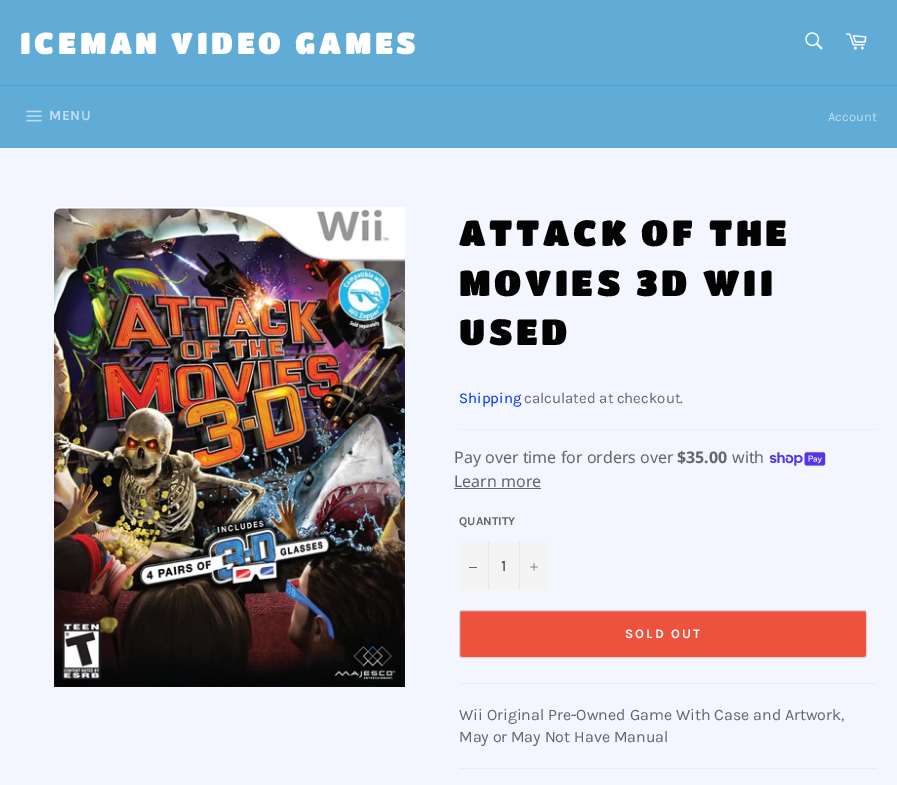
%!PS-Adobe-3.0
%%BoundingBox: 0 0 897 785
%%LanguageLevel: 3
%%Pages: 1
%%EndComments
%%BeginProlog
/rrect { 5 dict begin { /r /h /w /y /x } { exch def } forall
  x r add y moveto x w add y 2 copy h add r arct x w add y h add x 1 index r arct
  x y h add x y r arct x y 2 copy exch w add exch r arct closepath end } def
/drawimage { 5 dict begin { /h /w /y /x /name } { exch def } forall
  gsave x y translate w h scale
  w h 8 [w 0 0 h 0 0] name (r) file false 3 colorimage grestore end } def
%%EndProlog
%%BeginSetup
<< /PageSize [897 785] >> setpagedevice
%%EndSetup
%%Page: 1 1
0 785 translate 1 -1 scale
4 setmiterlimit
0.38 0.675 0.843 setrgbcolor
0 0 897 785 rectfill
(images/1.raw) 805 32 18 18 drawimage
(images/2.raw) 845 33 22 17 drawimage
0.302 0.631 0.824 setrgbcolor
0 85 897 1 rectfill
(images/3.raw) 26 110 16 12 drawimage
0.953 0.965 1 setrgbcolor
0 148 897 637 rectfill
(images/4.raw) 54 207 351 480 drawimage
0.89 0.933 0.969 setrgbcolor
459 429 418 1 rectfill
(images/5.raw) 769 452 57 14 drawimage
0.4 setgray
454 488 87 1 rectfill
0.957 setgray
459 542 90 48 rectfill
0.906 setgray
488 542 1 48 rectfill
0.4 setgray
469 567 8 1 rectfill
0.906 setgray
519 542 1 48 rectfill
(images/6.raw) 530 563 8 8 drawimage
0.925 0.322 0.243 setrgbcolor
459.5 610.5 407 47 2.5 rrect gsave fill grestore
0.835 setgray
stroke
0.89 0.933 0.969 setrgbcolor
459 683 418 1 rectfill
459 768 418 1 rectfill
/TitanOne-Regular [30 0 0 -30 0 0] selectfont
1 setgray
20 54 moveto 3.6 0 (ICEMAN VIDEO GAMES) ashow
/Karla-Bold [14 0 0 -14 0 0] selectfont
0.753 0.871 0.937 setrgbcolor
49 120 moveto 0.5 0 (MENU) ashow
/Karla-Regular [13 0 0 -13 0 0] selectfont
828 121 moveto (Account) show
/TitanOne-Regular [36 0 0 -36 0 0] selectfont
0.012 setgray
459 246 moveto 3.6 0 (ATTACK OF THE) ashow
459 296 moveto 3.6 0 (MOVIES 3D WII) ashow
459 345 moveto 3.6 0 (USED) ashow
/Karla-Regular [15 0 0 -15 0 0] selectfont
0 0.18 1 setrgbcolor
459 403 moveto (Shipping) show
0.4 setgray
524 403 moveto (calculated at checkout.) show
/NotoSans-Regular [16 0 0 -16 0 0] selectfont
454 463 moveto (Pay over time for orders over) show
/NotoSans-Bold [16 0 0 -16 0 0] selectfont
677 463 moveto ($35.00) show
/NotoSans-Regular [16 0 0 -16 0 0] selectfont
732 463 moveto (with) show
454 487 moveto (Learn more) show
/Karla-Bold [12 0 0 -12 0 0] selectfont
459 525 moveto (QUANTITY) show
/Karla-Regular [16 0 0 -16 0 0] selectfont
0.2 setgray
501 571 moveto (1) show
/Karla-Bold [13 0 0 -13 0 0] selectfont
1 setgray
625 638 moveto 2 0 (SOLD OUT) ashow
/Karla-Regular [16 0 0 -16 0 0] selectfont
0.4 setgray
459 720 moveto (Wii Original Pre-Owned Game With Case and Artwork,) show
459 742 moveto (May or May Not Have Manual) show
showpage
%%EOF
